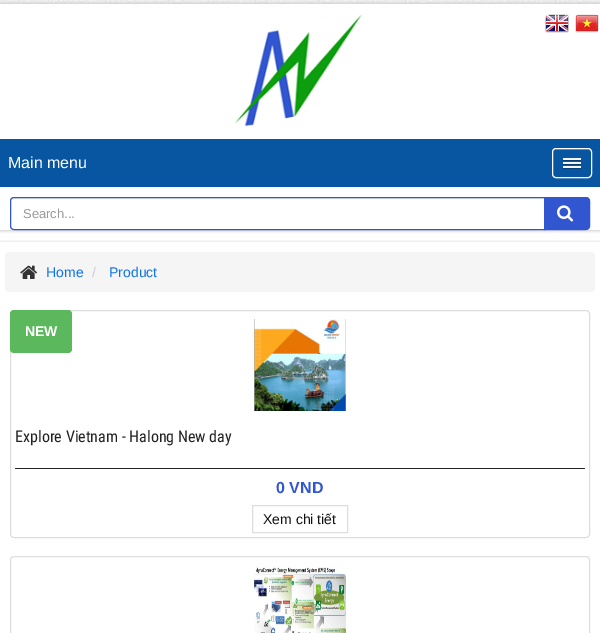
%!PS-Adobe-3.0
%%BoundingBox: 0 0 600 633
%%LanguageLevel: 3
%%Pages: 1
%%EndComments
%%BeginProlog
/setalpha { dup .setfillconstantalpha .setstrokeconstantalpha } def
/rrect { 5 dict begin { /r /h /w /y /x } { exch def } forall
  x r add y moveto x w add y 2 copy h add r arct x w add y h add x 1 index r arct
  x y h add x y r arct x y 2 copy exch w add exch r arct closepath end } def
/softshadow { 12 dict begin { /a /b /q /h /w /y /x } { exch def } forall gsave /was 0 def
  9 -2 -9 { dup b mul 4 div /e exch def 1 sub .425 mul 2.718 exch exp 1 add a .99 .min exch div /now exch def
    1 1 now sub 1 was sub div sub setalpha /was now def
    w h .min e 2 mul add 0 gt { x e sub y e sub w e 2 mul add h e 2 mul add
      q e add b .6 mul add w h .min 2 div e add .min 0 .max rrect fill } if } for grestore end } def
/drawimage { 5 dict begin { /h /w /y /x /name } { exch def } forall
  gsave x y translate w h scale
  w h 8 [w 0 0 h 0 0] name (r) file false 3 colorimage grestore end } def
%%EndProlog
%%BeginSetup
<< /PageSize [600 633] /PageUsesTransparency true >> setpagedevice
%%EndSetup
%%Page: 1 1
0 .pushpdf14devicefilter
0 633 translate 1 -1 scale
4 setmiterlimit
1 setgray
0 0 600 633 rectfill
(images/1.raw) 0 0 600 4 drawimage
0.8 setgray
-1 3 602 228 0 1.5 1 softshadow
1 setgray
0 4 600 226 rectfill
(images/2.raw) 235 14 127 113 drawimage
(images/3.raw) 545 14 24 19 drawimage
(images/4.raw) 575 14 24 19 drawimage
0.031 0.333 0.631 setrgbcolor
0 139 600 48 rectfill
0.106 0.384 0.659 setrgbcolor
newpath 552 174 moveto 552 180 557 179 561 179 curveto 583 179 lineto 587 179 592 180 592 174 curveto 592 176 590 178 588 178 curveto 556 178 lineto 554 178 552 176 552 174 curveto closepath fill
0.031 0.333 0.631 setrgbcolor
552 148 40 30 4 rrect fill
0.129 0.4 0.667 setrgbcolor
newpath 556 150 moveto 588 150 lineto 590 150 591 151 591 153 curveto 591 148 587 149 582.5 149 curveto 561.5 149 lineto 557 149 553 148 553 153 curveto 553 151 554 150 556 150 curveto closepath fill
1 setgray
552.5 148.5 39 29 3.5 rrect stroke
0.024 0.251 0.475 setrgbcolor
563 160 18 1 rectfill
0.961 setgray
563 158 18 2 rectfill
0.024 0.251 0.475 setrgbcolor
563 164 18 1 rectfill
0.961 setgray
563 162 18 2 rectfill
0.024 0.251 0.475 setrgbcolor
563 168 18 1 rectfill
0.961 setgray
563 166 18 2 rectfill
0.925 setgray
newpath 14 199 moveto 544 199 lineto 544 198 lineto 14 198 lineto 12 198 11 200 11 202 curveto 11 200 12 199 14 199 curveto closepath fill
0.196 0.337 0.816 setrgbcolor
newpath 14 197.5 moveto 544.5 197.5 lineto 544.5 229.5 lineto 14 229.5 lineto 12 229.5 10.5 228 10.5 226 curveto 10.5 201 lineto 10.5 199 12 197.5 14 197.5 curveto closepath stroke
newpath 544.5 197.5 moveto 586 197.5 lineto 588 197.5 589.5 199 589.5 201 curveto 589.5 226 lineto 589.5 228 588 229.5 586 229.5 curveto 544.5 229.5 lineto closepath gsave fill grestore
stroke
(images/5.raw) 557 205 17 17 drawimage
gsave
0 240 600 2 rectclip
0 setgray
0 242 600 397 0 2 0.15 softshadow
grestore
0.961 setgray
5 252 590 40 4 rrect fill
(images/6.raw) 20 265 17 14 drawimage
0.867 setgray
10.5 310.5 579 227 3.5 rrect stroke
0.361 0.722 0.361 setrgbcolor
10 310 62 43 4 rrect fill
(images/7.raw) 254 319 92 92 drawimage
0.133 setgray
15 468 570 1 rectfill
0.867 setgray
252.5 505.5 95 27 rectstroke
10.5 556.5 579 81 3.5 rrect stroke
(images/8.raw) 254 565 92 68 drawimage
/LiberationSans-Regular [16 0 0 -16 0 0] selectfont
1 setgray
8 168 moveto (Main menu) show
/LiberationSans-Regular [13 0 0 -13 0 0] selectfont
0.6 setgray
23 218 moveto (Search...) show
/LiberationSans-Regular [14 0 0 -14 0 0] selectfont
0.055 0.451 0.902 setrgbcolor
46 277 moveto (Home) show
0.8 setgray
92 277 moveto (/) show
0.055 0.451 0.902 setrgbcolor
109 277 moveto (Product) show
/LiberationSans-Bold [14 0 0 -14 0 0] selectfont
1 setgray
25 336 moveto (NEW) show
/RobotoCondensed-Regular [16 0 0 -16 0 0] selectfont
0.133 setgray
15 442 moveto (Explore Vietnam - Halong New day) show
/LiberationSans-Bold [16 0 0 -16 0 0] selectfont
0.196 0.337 0.816 setrgbcolor
276 493 moveto (0 VND) show
/LiberationSans-Regular [14 0 0 -14 0 0] selectfont
0.067 setgray
263 524 moveto (Xem chi tiết) show
.poppdf14devicefilter showpage
%%EOF
